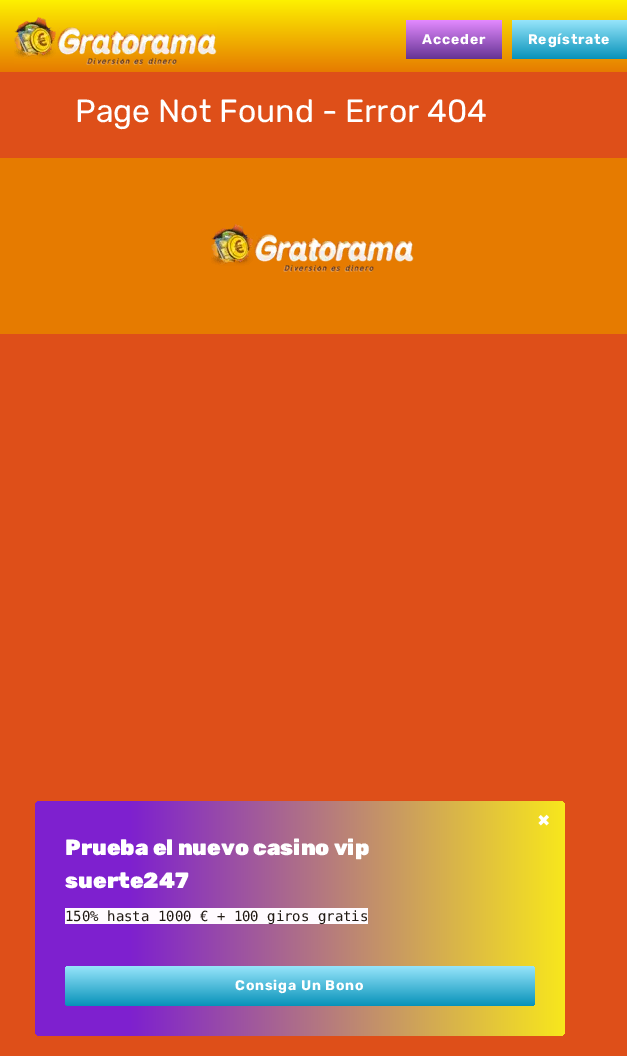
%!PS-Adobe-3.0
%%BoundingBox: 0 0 627 1056
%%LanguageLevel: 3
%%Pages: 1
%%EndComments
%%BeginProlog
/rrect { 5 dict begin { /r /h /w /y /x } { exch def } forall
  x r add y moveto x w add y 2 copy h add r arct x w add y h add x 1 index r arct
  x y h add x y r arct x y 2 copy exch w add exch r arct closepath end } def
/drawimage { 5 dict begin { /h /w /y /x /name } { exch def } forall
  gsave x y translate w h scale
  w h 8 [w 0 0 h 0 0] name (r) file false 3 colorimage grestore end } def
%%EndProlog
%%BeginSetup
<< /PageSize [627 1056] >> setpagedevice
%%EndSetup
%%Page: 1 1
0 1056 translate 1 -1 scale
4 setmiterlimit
0.871 0.31 0.098 setrgbcolor
0 0 627 1056 rectfill
gsave newpath 0 0 moveto 627 0 lineto 627 72 lineto 0 72 lineto closepath clip newpath
<< /ShadingType 2 /ColorSpace /DeviceRGB /Coords [314 0 314 72] /Extend [true true] /Function << /FunctionType 2 /Domain [0 1] /C0 [0.992 0.945 0] /C1 [0.902 0.482 0] /N 1 >> >> shfill grestore
(images/1.raw) 14 17 203 48 drawimage
gsave 406 20 96 39 3 rrect clip newpath
<< /ShadingType 2 /ColorSpace /DeviceRGB /Coords [454 20 454 59] /Extend [true true] /Function << /FunctionType 2 /Domain [0 1] /C0 [0.89 0.541 1] /C1 [0.396 0.204 0.576] /N 1 >> >> shfill grestore
gsave 512 20 115 39 3 rrect clip newpath
<< /ShadingType 2 /ColorSpace /DeviceRGB /Coords [570 20 570 59] /Extend [true true] /Function << /FunctionType 2 /Domain [0 1] /C0 [0.592 0.898 0.984] /C1 [0.027 0.573 0.725] /N 1 >> >> shfill grestore
0.902 0.482 0 setrgbcolor
0 158 627 176 rectfill
(images/2.raw) 211 224 203 48 drawimage
gsave 35 801 530 235 6 rrect clip newpath
<< /ShadingType 2 /ColorSpace /DeviceRGB /Coords [35 919 565 919] /Extend [true true] /Function << /FunctionType 3 /Domain [0 1] /Functions [<< /FunctionType 2 /Domain [0 1] /C0 [0.494 0.125 0.812] /C1 [0.494 0.125 0.812] /N 1 >> << /FunctionType 2 /Domain [0 1] /C0 [0.494 0.125 0.812] /C1 [0.973 0.906 0.11] /N 1 >>] /Bounds [0.18] /Encode [0 1 0 1] >> >> shfill grestore
1 0.984 1 setrgbcolor
65 908 303 16 rectfill
gsave 65 966 470 40 4 rrect clip newpath
<< /ShadingType 2 /ColorSpace /DeviceRGB /Coords [300 966 300 1006] /Extend [true true] /Function << /FunctionType 2 /Domain [0 1] /C0 [0.592 0.898 0.984] /C1 [0.027 0.573 0.725] /N 1 >> >> shfill grestore
/Rubik-Bold [14 0 0 -14 0 0] selectfont
1 setgray
422 44 moveto 0.8 0 (Acceder) ashow
528 44 moveto 0.8 0 (Regístrate) ashow
/Rubik-Regular [32 0 0 -32 0 0] selectfont
75 122 moveto (Page Not Found - Error 404) show
/DejaVuSans-Regular [16 0 0 -16 0 0] selectfont
537 826 moveto (✖) show
/Rubik-Black [22 0 0 -22 0 0] selectfont
65 855 moveto (Prueba el nuevo casino vip) show
65 888 moveto (suerte247) show
/DejaVuSansMono-Regular [14 0 0 -14 0 0] selectfont
0.129 0.102 0.078 setrgbcolor
65 921 moveto (150% hasta 1000 € + 100 giros gratis) show
/Rubik-Bold [14 0 0 -14 0 0] selectfont
1 setgray
235 990 moveto 0.8 0 (Consiga Un Bono) ashow
showpage
%%EOF
